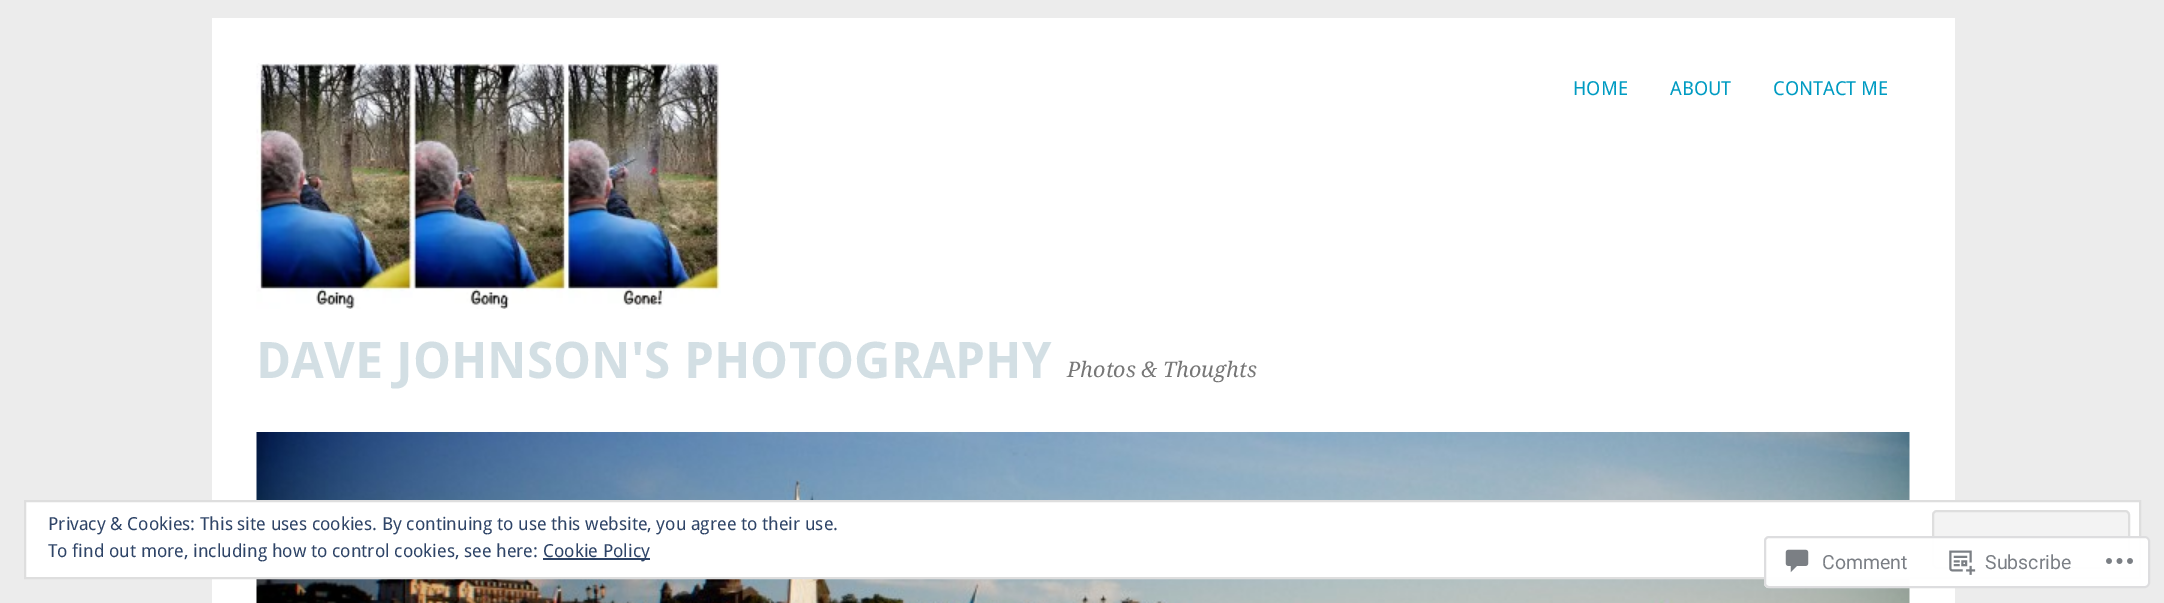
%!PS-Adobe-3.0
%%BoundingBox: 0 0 2164 603
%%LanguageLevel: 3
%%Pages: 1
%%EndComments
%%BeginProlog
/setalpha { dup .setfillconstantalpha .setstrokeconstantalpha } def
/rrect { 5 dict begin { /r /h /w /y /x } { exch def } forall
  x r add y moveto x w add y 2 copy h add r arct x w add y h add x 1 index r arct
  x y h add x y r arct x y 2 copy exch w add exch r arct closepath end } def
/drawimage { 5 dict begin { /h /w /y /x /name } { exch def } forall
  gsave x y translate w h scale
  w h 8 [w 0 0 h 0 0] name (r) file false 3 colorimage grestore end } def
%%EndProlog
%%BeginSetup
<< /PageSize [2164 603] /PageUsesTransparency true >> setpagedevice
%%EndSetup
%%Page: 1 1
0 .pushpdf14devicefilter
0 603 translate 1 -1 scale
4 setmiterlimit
0.925 setgray
0 0 2164 603 rectfill
1 setgray
212 18 1743 585 rectfill
(images/1.raw) 256 63 465 246 drawimage
(images/2.raw) 256 432 1654 171 drawimage
newpath 25 501 moveto 2140 501 lineto 2140 578 lineto 25 578 lineto closepath gsave fill grestore
0.871 setgray
2 setlinewidth
stroke
0.953 setgray
1933 511 196 57 4 rrect gsave fill grestore
0.871 setgray
stroke
0.98 setalpha
1 setgray
1764 536 386 52 5 rrect fill
0.863 0.863 0.871 setrgbcolor
1765 537 384 50 4 rrect stroke
1 setalpha
(images/3.raw) 1785 549 24 24 drawimage
(images/4.raw) 1949 550 27 25 drawimage
(images/5.raw) 2106 558 27 6 drawimage
0.18 0.267 0.404 setrgbcolor
543 558 107 2 rectfill
/DroidSans-Regular [19.25 0 0 -19.25 0 0] selectfont
0 0.608 0.761 setrgbcolor
1573 95 moveto (HOME) show
1670 95 moveto (ABOUT) show
1773 95 moveto (CONTACT ME) show
/DroidSans-Bold [50.4 0 0 -50.4 0 0] selectfont
0.827 0.875 0.894 setrgbcolor
256 378 moveto (DAVE JOHNSON'S PHOTOGRAPHY) show
/DroidSerif-Italic [21.5 0 0 -21.5 0 0] selectfont
0.467 setgray
1067 377 moveto (Photos & Thoughts) show
/Roboto-Regular [19.5 0 0 -19.5 0 0] selectfont
0.482 0.498 0.522 setrgbcolor
1822 569 moveto (Comment) show
1985 569 moveto (Subscribe) show
/DroidSans-Regular [18 0 0 -18 0 0] selectfont
0.18 0.267 0.404 setrgbcolor
48 530 moveto (Privacy & Cookies: This site uses cookies. By continuing to use this website, you agree to their use.) show
48 557 moveto (To find out more, including how to control cookies, see here:) show
543 557 moveto (Cookie Policy) show
.poppdf14devicefilter showpage
%%EOF
